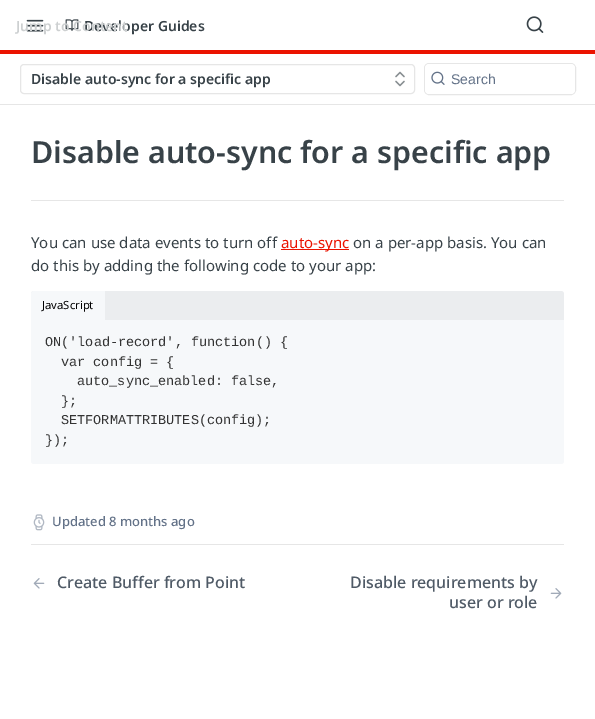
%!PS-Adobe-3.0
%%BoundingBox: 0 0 595 719
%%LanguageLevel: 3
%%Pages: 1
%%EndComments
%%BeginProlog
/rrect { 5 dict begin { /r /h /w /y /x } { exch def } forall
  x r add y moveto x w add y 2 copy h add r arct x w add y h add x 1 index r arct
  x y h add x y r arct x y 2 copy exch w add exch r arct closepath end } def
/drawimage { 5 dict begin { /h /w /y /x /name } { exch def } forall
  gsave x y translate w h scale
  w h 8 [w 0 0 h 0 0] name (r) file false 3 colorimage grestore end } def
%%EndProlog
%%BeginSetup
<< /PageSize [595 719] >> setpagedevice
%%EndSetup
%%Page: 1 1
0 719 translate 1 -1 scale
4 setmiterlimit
1 setgray
0 0 595 719 rectfill
0.902 setgray
0 104 595 1 rectfill
0.922 0.075 0 setrgbcolor
0 50 595 4 rectfill
(images/1.raw) 26 19 18 13 drawimage
(images/2.raw) 65 19 14 12 drawimage
(images/3.raw) 526 16 18 17 drawimage
0.902 setgray
20.5 64.5 394 29 3.5 rrect stroke
0.533 0.557 0.569 setrgbcolor
1.3 setlinewidth
1 setlinecap
1 setlinejoin
newpath 396 81.5 moveto 400 85.5 lineto 404 81.5 lineto 404 76.5 moveto 400 72.5 lineto 396 76.5 lineto stroke
0.902 setgray
1 setlinewidth
0 setlinecap
0 setlinejoin
424.5 63.5 151 31 4.5 rrect stroke
1 setgray
425 64 150 30 4 rrect fill
(images/4.raw) 431 71 14 14 drawimage
0.902 setgray
31 200 533 1 rectfill
0.922 0.075 0 setrgbcolor
281 249 68 1 rectfill
0.922 0.929 0.937 setrgbcolor
newpath 34 291 moveto 561 291 lineto 562.5 291 564 292.5 564 294 curveto 564 320 lineto 31 320 lineto 31 294 lineto 31 292.5 32.5 291 34 291 curveto closepath fill
0.965 0.973 0.98 setrgbcolor
newpath 34 291 moveto 105 291 lineto 105 320 lineto 31 320 lineto 31 294 lineto 31 292.5 32.5 291 34 291 curveto closepath fill
newpath 31 320 moveto 564 320 lineto 564 461 lineto 564 462.5 562.5 464 561 464 curveto 34 464 lineto 32.5 464 31 462.5 31 461 curveto closepath fill
(images/5.raw) 33 514 12 17 drawimage
0.902 setgray
31 544 533 1 rectfill
(images/6.raw) 33 578 12 11 drawimage
(images/7.raw) 550 588 12 11 drawimage
/NotoSans-SemiBold [14 0 0 -14 0 0] selectfont
0.22 0.259 0.282 setrgbcolor
84 31 moveto (Developer Guides) show
0.804 0.816 0.82 setrgbcolor
16 31 moveto (Jump to Content) show
0.22 0.259 0.282 setrgbcolor
31 84 moveto (Disable auto-sync for a specific app) show
/LiberationSans-Regular [14 0 0 -14 0 0] selectfont
0.388 0.447 0.533 setrgbcolor
451 84 moveto (Search) show
/NotoSans-SemiBold [30.4 0 0 -30.4 0 0] selectfont
0.22 0.259 0.282 setrgbcolor
31 163 moveto (Disable auto-sync for a specific app) show
/NotoSans-Regular [15 0 0 -15 0 0] selectfont
31 248 moveto (You can use data events to turn off) show
0.922 0.075 0 setrgbcolor
281 248 moveto (auto-sync) show
0.22 0.259 0.282 setrgbcolor
353 248 moveto (on a per-app basis. You can) show
31 271 moveto (do this by adding the following code to your app:) show
/NotoSans-Regular [11.25 0 0 -11.25 0 0] selectfont
0 setgray
42 309 moveto (JavaScript) show
/LiberationMono-Regular [13.5 0 0 -13.5 0 0] selectfont
0.2 setgray
45 346 moveto (ON\('load-record', function\(\) {) show
61 366 moveto (var config = {) show
77 385 moveto (auto_sync_enabled: false,) show
61 405 moveto (};) show
61 424 moveto (SETFORMATTRIBUTES\(config\);) show
45 444 moveto (}\);) show
/NotoSans-Medium [13 0 0 -13 0 0] selectfont
0.388 0.447 0.533 setrgbcolor
52 526 moveto (Updated 8 months ago) show
/NotoSans-Medium [16 0 0 -16 0 0] selectfont
0.31 0.353 0.4 setrgbcolor
57 588 moveto (Create Buffer from Point) show
350 588 moveto (Disable requirements by) show
449 608 moveto (user or role) show
showpage
%%EOF
